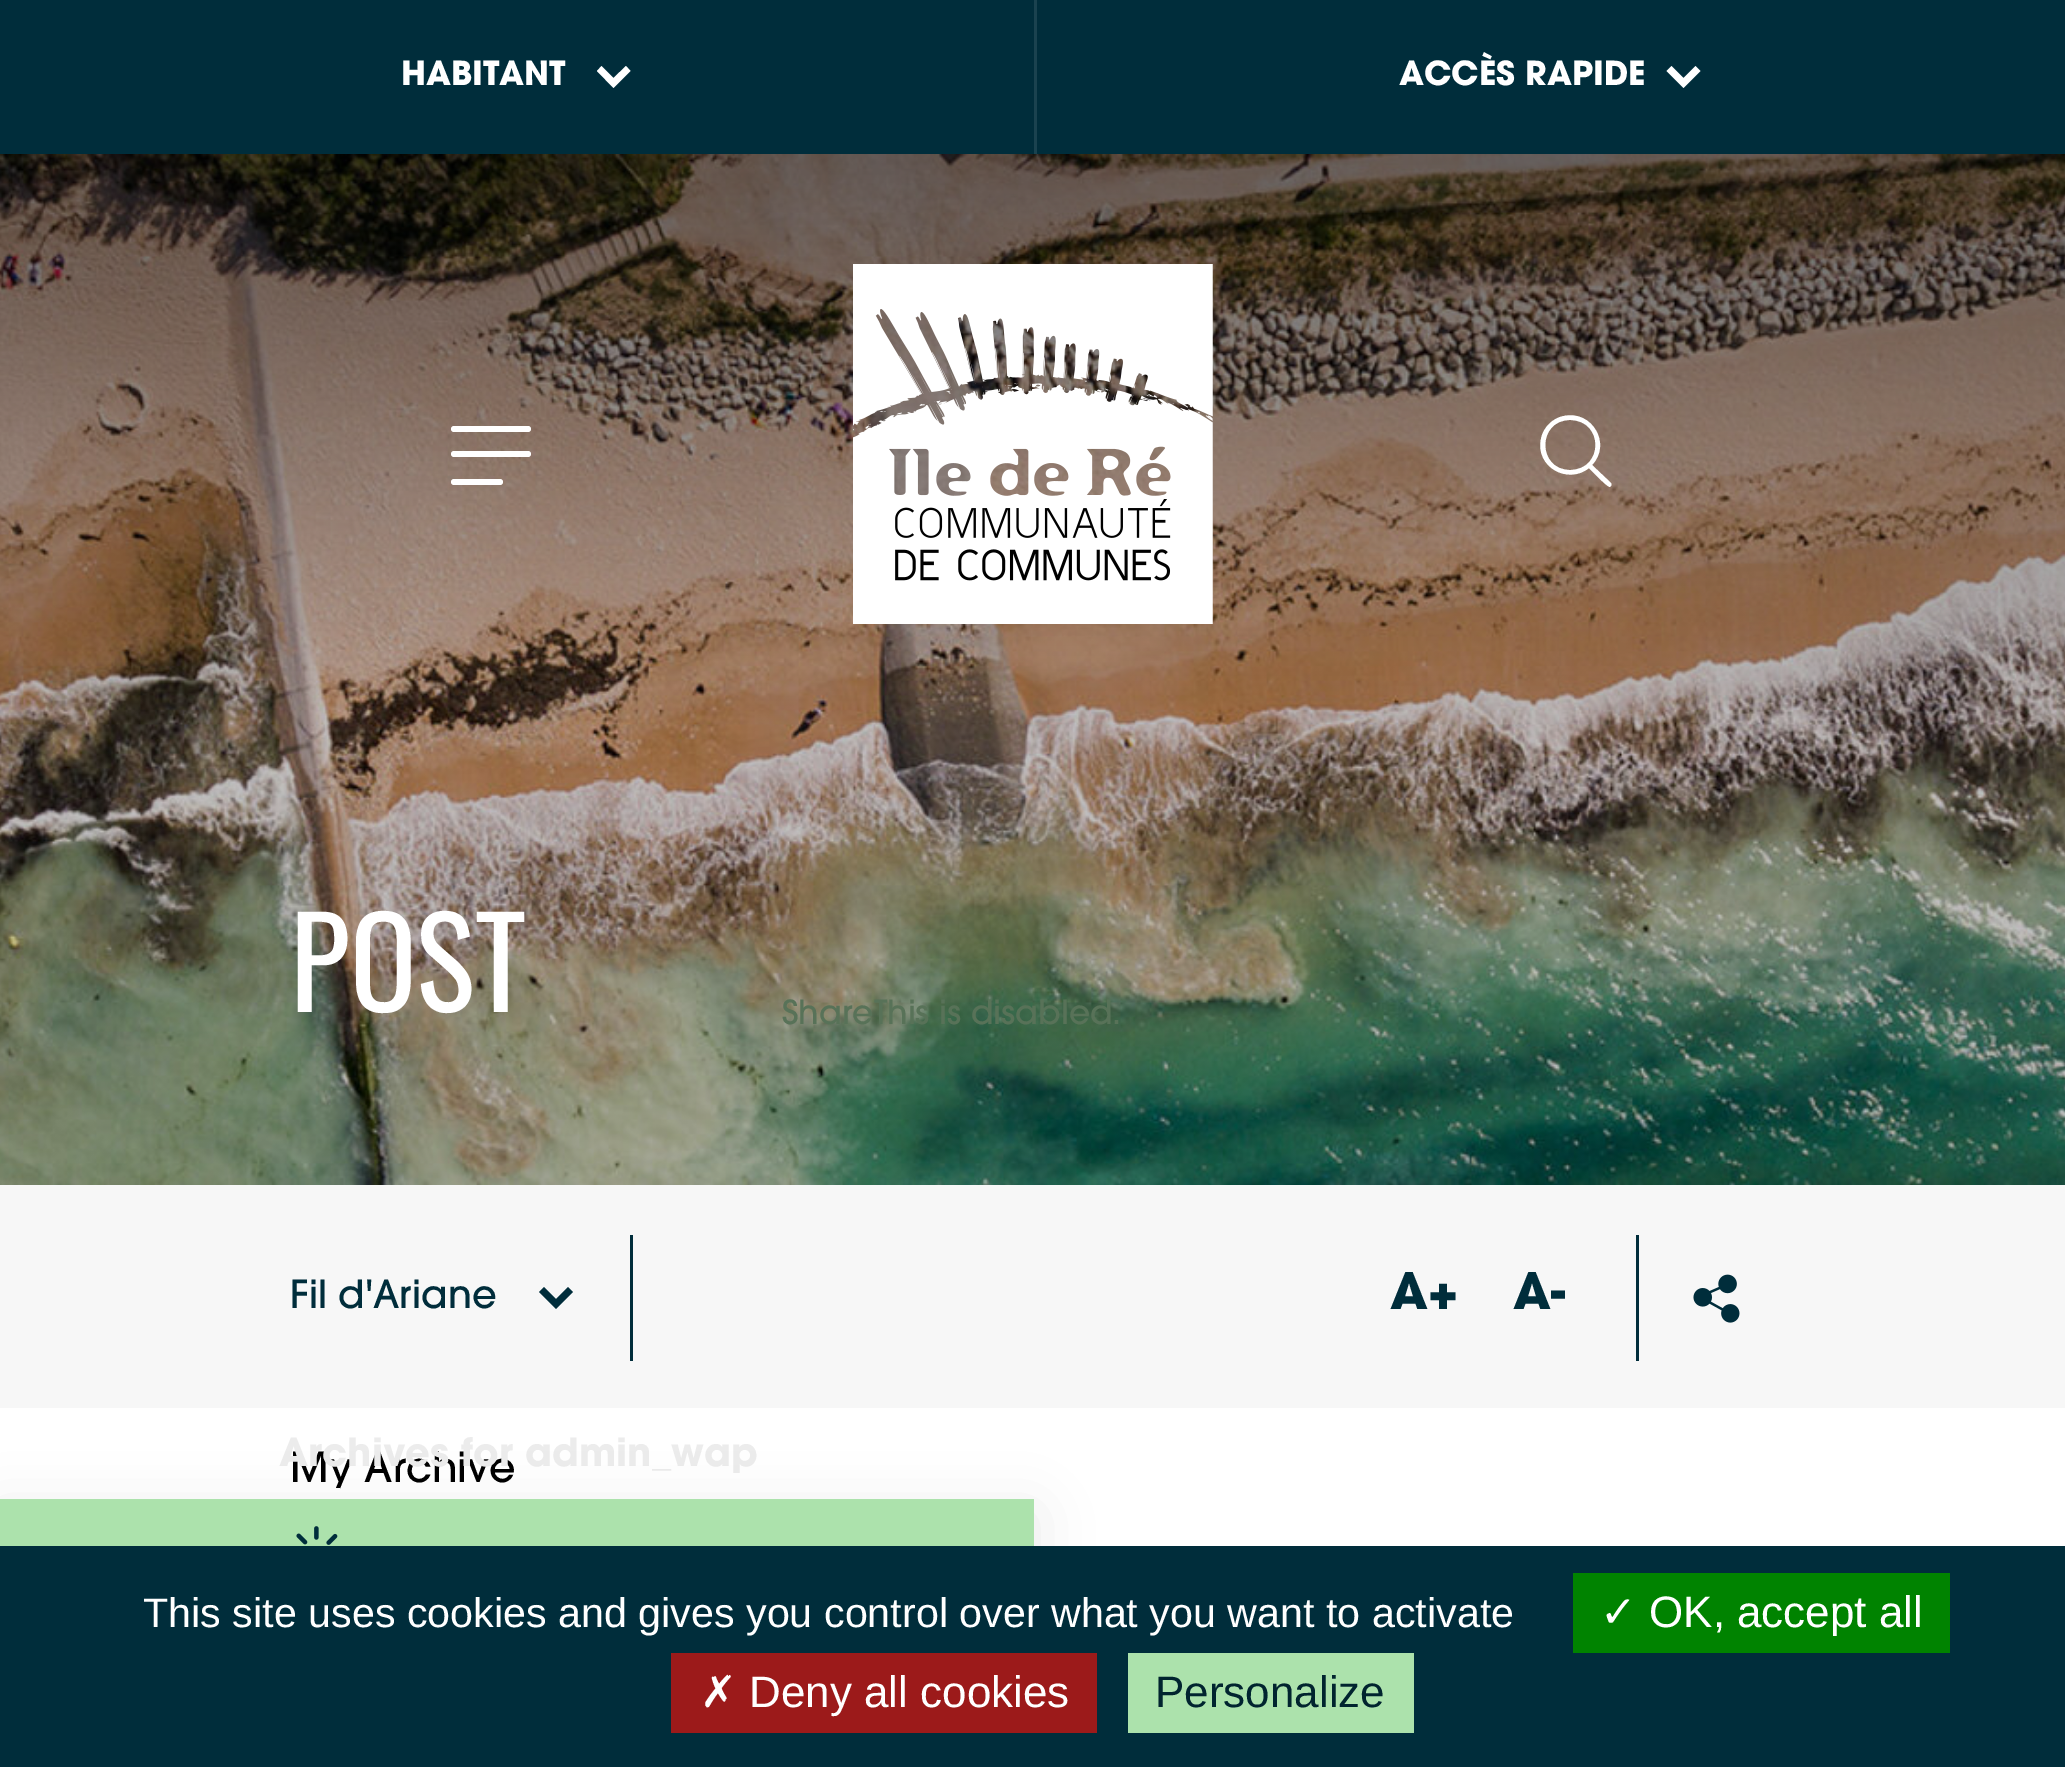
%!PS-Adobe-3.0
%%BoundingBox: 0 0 2065 1767
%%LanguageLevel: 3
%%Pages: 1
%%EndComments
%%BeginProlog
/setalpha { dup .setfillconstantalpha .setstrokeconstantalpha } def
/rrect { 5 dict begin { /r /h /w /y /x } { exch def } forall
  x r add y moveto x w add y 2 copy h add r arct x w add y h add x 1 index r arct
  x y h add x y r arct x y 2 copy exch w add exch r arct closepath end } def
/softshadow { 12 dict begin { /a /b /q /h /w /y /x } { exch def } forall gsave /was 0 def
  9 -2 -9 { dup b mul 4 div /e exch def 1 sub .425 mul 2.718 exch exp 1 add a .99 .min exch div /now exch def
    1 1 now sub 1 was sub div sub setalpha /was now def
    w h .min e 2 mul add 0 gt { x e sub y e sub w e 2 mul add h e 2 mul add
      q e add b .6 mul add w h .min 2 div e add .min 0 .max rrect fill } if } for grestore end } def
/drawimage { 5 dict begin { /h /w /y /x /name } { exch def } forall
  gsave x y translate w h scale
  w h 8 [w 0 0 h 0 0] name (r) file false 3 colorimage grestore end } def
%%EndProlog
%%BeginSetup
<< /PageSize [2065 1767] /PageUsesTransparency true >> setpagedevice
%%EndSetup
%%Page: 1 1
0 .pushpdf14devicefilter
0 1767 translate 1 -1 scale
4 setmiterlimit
1 setgray
0 0 2065 1767 rectfill
(images/1.raw) 0 154 2065 1031 drawimage
0 0.176 0.231 setrgbcolor
1037 0 1028 154 rectfill
0.102 0.259 0.31 setrgbcolor
1034 0 3 154 rectfill
1 setgray
newpath 1666.5 71 moveto 1683.5 88 lineto 1700.5 71 lineto 1695.5 66 lineto 1683.5 78 lineto 1671.5 66 lineto closepath fill
451 426 80 6 3 rrect fill
451 451 80 6 3 rrect fill
451 479 52 6 3 rrect fill
(images/2.raw) 853 264 360 360 drawimage
newpath 1570 470 moveto 1537 470 1537 420 1570 420 curveto 1604 420 1604 470 1570 470 curveto closepath 1611 483 moveto 1592 465 lineto 1612 444 1592 410 1564 416 curveto 1558 417 1553 420 1549 424 curveto 1545 428 1542 433 1541 439 curveto 1535 467 1568 485 1589 468 curveto 1592 471 1607 487 1610 487 curveto 1611 486 1612 485 1611 483 curveto closepath fill
0 0.176 0.231 setrgbcolor
0 0 1034 154 rectfill
1 setgray
newpath 597 71 moveto 613.5 88 lineto 630.5 71 lineto 626 66 lineto 613.5 78 lineto 601.5 66 lineto closepath fill
0.969 setgray
0 1185 2065 223 rectfill
0 0.176 0.231 setrgbcolor
630 1235 3 126 rectfill
newpath 539 1292 moveto 556 1309 lineto 573 1292 lineto 568 1287 lineto 556 1299 lineto 544 1287 lineto closepath fill
1636 1235 3 126 rectfill
(images/3.raw) 1693 1274 47 49 drawimage
/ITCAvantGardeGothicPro-Bold [33 0 0 -33 0 0] selectfont
1 setgray
1399 85 moveto (ACCÈS RAPIDE) show
/Oswald-Regular [124 0 0 -124 0 0] selectfont
290 1012 moveto (POST) show
/ITCAvantGardeGothicPro-Bold [33 0 0 -33 0 0] selectfont
401 85 moveto (HABITANT) show
/ITCAvantGardeGothicPro-Medium [33 0 0 -33 0 0] selectfont
0.345 0.447 0.345 setrgbcolor
782 1024 moveto (ShareThis is disabled.) show
/ITCAvantGardeGothicPro-Medium [38.5 0 0 -38.5 0 0] selectfont
0 0.176 0.231 setrgbcolor
290 1308 moveto (Fil d'Ariane) show
/ITCAvantGardeGothicPro-Bold [50 0 0 -50 0 0] selectfont
1390 1309 moveto (A+) show
1513 1309 moveto (A-) show
/ITCAvantGardeGothicPro-Medium [41.25 0 0 -41.25 0 0] selectfont
0 setgray
290 1482 moveto (My Archive) show
/ITCAvantGardeGothicPro-Bold [38.5 0 0 -38.5 0 0] selectfont
0.925 setgray
279 1466 moveto (Archives for admin_wap) show
1 setgray
334 1488 6 2 rectfill
0 setgray
0 1513 1034 132 0 27.5 0.08 softshadow
0.675 0.886 0.675 setrgbcolor
0 1499 1034 47 rectfill
(images/4.raw) 296 1526 42 19 drawimage
0 0.176 0.231 setrgbcolor
0 1546 2065 221 rectfill
/LiberationSans-Regular [41.25 0 0 -41.25 0 0] selectfont
1 setgray
143 1627 moveto (This site uses cookies and gives you control over what you want to activate) show
0 0.514 0 setrgbcolor
1573 1573 377 80 rectfill
/DejaVuSans-Regular [44 0 0 -44 0 0] selectfont
1 setgray
1600 1627 moveto (✓) show
/LiberationSans-Regular [44 0 0 -44 0 0] selectfont
1649 1627 moveto (OK, accept all) show
0.612 0.102 0.102 setrgbcolor
671 1653 426 80 rectfill
/DejaVuSans-Regular [44 0 0 -44 0 0] selectfont
1 setgray
700 1707 moveto (✗) show
/LiberationSans-Regular [44 0 0 -44 0 0] selectfont
749 1707 moveto (Deny all cookies) show
0.675 0.886 0.675 setrgbcolor
1128 1653 286 80 rectfill
0.004 0.141 0.184 setrgbcolor
1155 1707 moveto (Personalize) show
.poppdf14devicefilter showpage
%%EOF
